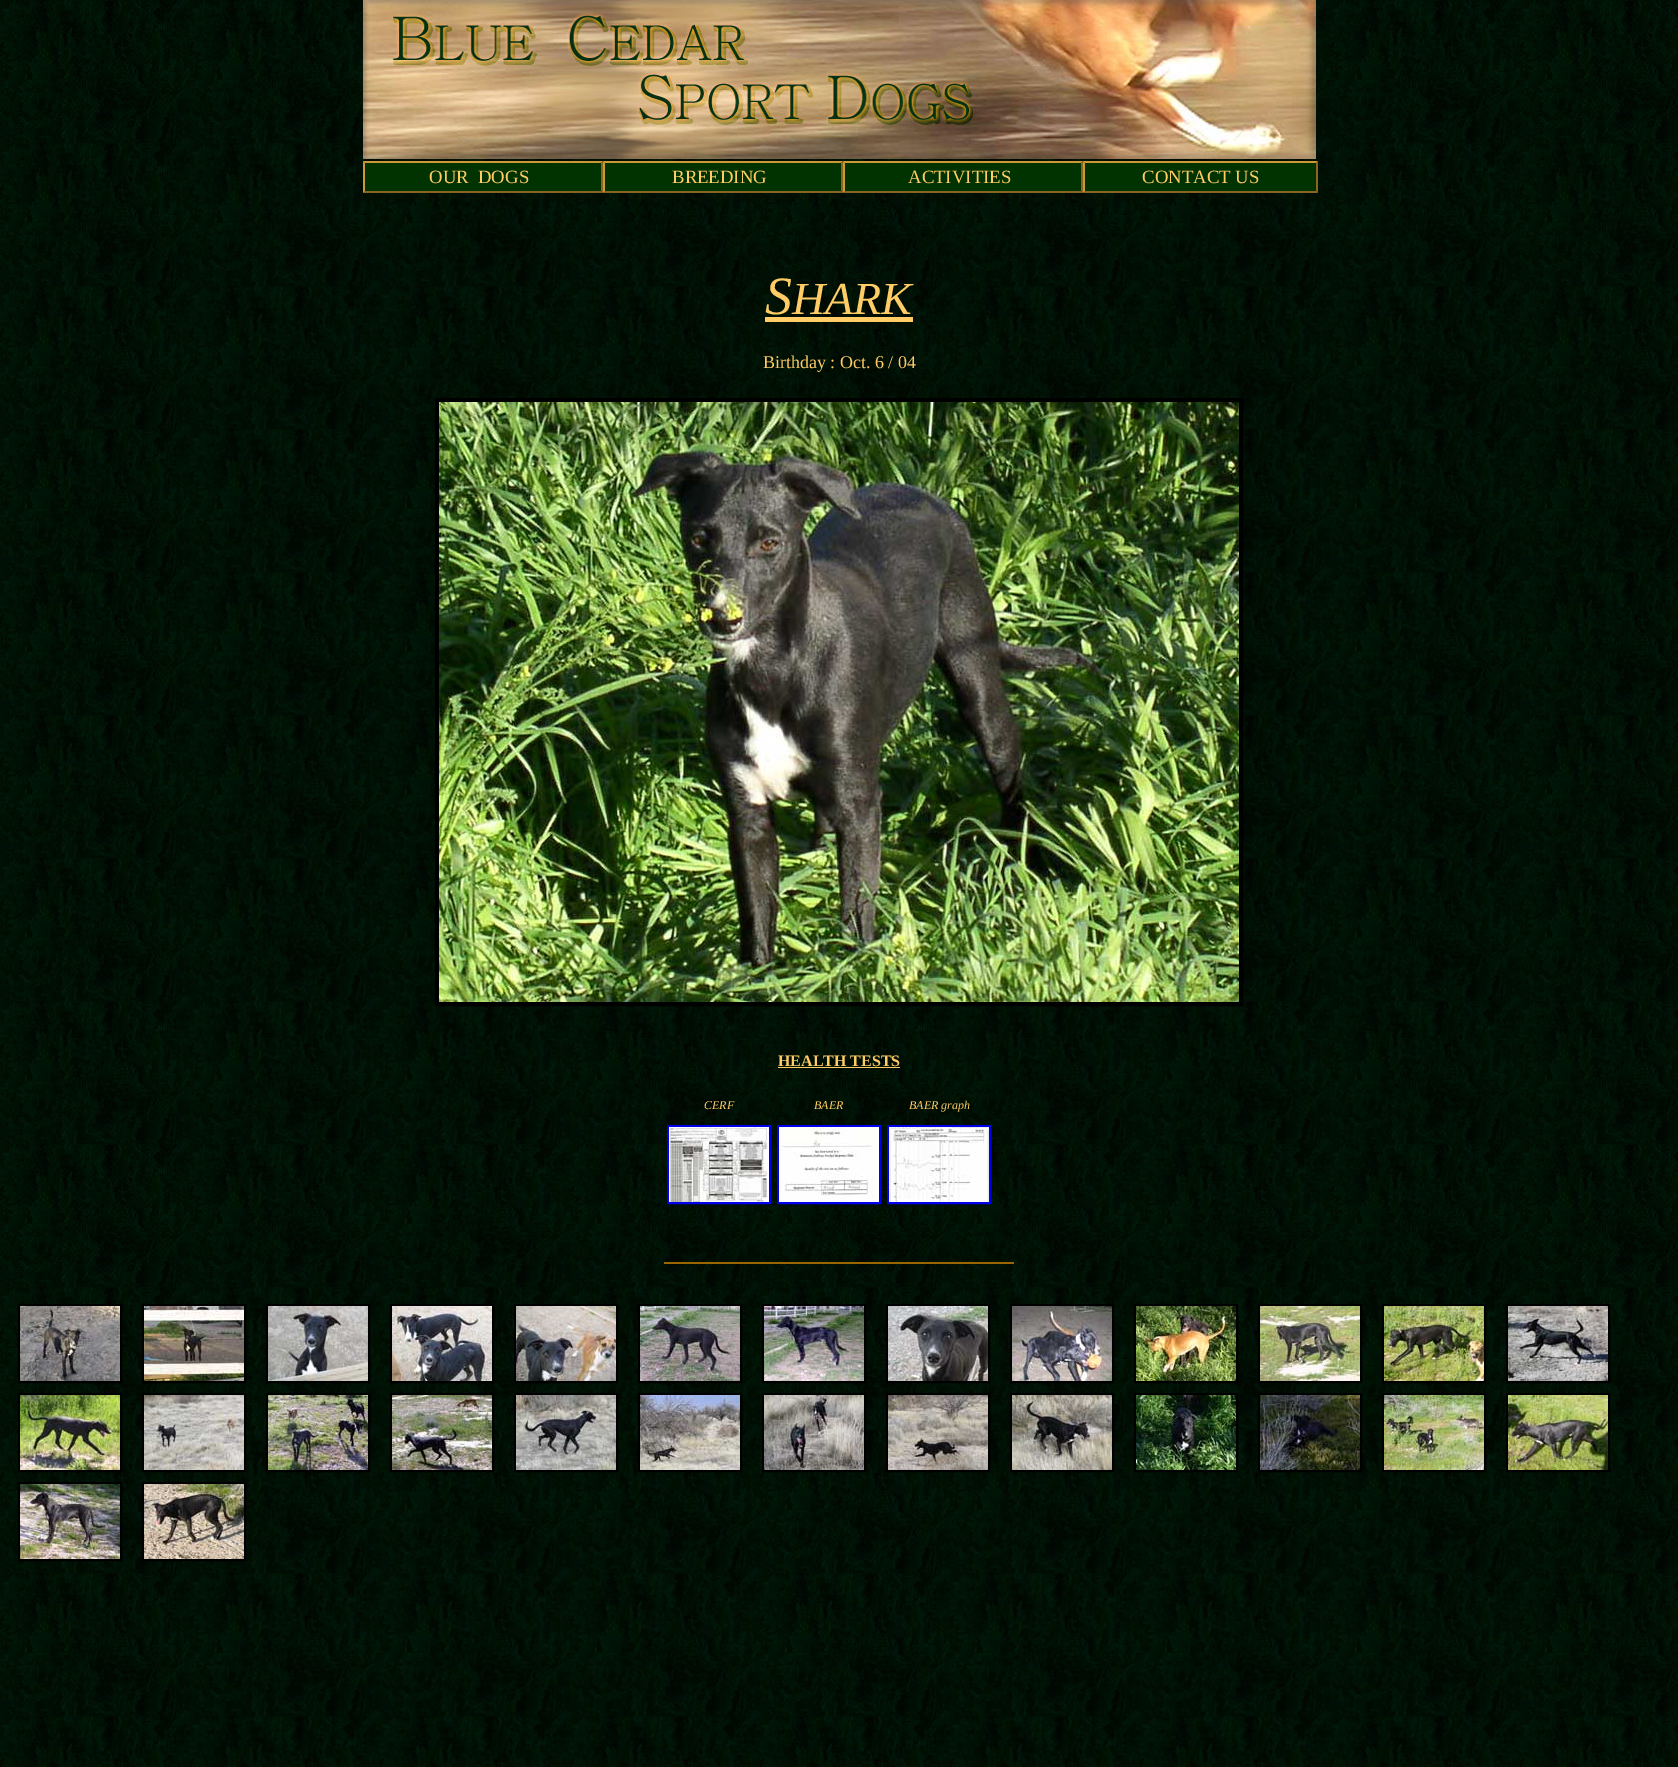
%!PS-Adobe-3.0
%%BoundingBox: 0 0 1678 1767
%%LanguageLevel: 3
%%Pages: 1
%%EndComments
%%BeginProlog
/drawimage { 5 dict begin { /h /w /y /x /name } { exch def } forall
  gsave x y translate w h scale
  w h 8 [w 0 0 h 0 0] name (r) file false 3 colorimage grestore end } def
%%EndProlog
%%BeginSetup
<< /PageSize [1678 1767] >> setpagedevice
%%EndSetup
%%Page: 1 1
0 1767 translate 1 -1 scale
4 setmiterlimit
1 setgray
0 0 1678 1767 rectfill
(images/1.raw) 0 0 1678 1767 drawimage
(images/2.raw) 363 0 953 159 drawimage
0.8 0.6 0.2 setrgbcolor
newpath 363 161 moveto 603 161 lineto 601 163 lineto 365 163 lineto closepath fill
0.533 0.4 0.133 setrgbcolor
newpath 603 161 moveto 603 193 lineto 601 191 lineto 601 163 lineto closepath fill
newpath 603 193 moveto 363 193 lineto 365 191 lineto 601 191 lineto closepath fill
0.8 0.6 0.2 setrgbcolor
newpath 363 193 moveto 363 161 lineto 365 163 lineto 365 191 lineto closepath fill
0 0.2 0 setrgbcolor
365 163 236 28 rectfill
0.8 0.6 0.2 setrgbcolor
newpath 603 161 moveto 843 161 lineto 841 163 lineto 605 163 lineto closepath fill
0.533 0.4 0.133 setrgbcolor
newpath 843 161 moveto 843 193 lineto 841 191 lineto 841 163 lineto closepath fill
newpath 843 193 moveto 603 193 lineto 605 191 lineto 841 191 lineto closepath fill
0.8 0.6 0.2 setrgbcolor
newpath 603 193 moveto 603 161 lineto 605 163 lineto 605 191 lineto closepath fill
0 0.2 0 setrgbcolor
605 163 236 28 rectfill
0.8 0.6 0.2 setrgbcolor
newpath 843 161 moveto 1083 161 lineto 1081 163 lineto 845 163 lineto closepath fill
0.533 0.4 0.133 setrgbcolor
newpath 1083 161 moveto 1083 193 lineto 1081 191 lineto 1081 163 lineto closepath fill
newpath 1083 193 moveto 843 193 lineto 845 191 lineto 1081 191 lineto closepath fill
0.8 0.6 0.2 setrgbcolor
newpath 843 193 moveto 843 161 lineto 845 163 lineto 845 191 lineto closepath fill
0 0.2 0 setrgbcolor
845 163 236 28 rectfill
0.8 0.6 0.2 setrgbcolor
newpath 1083 161 moveto 1318 161 lineto 1316 163 lineto 1085 163 lineto closepath fill
0.533 0.4 0.133 setrgbcolor
newpath 1318 161 moveto 1318 193 lineto 1316 191 lineto 1316 163 lineto closepath fill
newpath 1318 193 moveto 1083 193 lineto 1085 191 lineto 1316 191 lineto closepath fill
0.8 0.6 0.2 setrgbcolor
newpath 1083 193 moveto 1083 161 lineto 1085 163 lineto 1085 191 lineto closepath fill
0 0.2 0 setrgbcolor
1085 163 231 28 rectfill
1 0.8 0.4 setrgbcolor
765 317 148 5 rectfill
0 setgray
4 setlinewidth
437 400 804 604 rectstroke
(images/3.raw) 439 402 800 600 drawimage
0.6 0.4 0 setrgbcolor
664 1262 350 2 rectfill
1 0.8 0.4 setrgbcolor
778 1067 122 1 rectfill
0 0 0.933 setrgbcolor
2 setlinewidth
668 1126 102 77 rectstroke
(images/4.raw) 669 1127 100 75 drawimage
778 1126 102 77 rectstroke
(images/5.raw) 779 1127 100 75 drawimage
888 1126 102 77 rectstroke
(images/6.raw) 889 1127 100 75 drawimage
0 setgray
19 1305 102 77 rectstroke
(images/7.raw) 20 1306 100 75 drawimage
143 1305 102 77 rectstroke
(images/8.raw) 144 1306 100 75 drawimage
267 1305 102 77 rectstroke
(images/9.raw) 268 1306 100 75 drawimage
391 1305 102 77 rectstroke
(images/10.raw) 392 1306 100 75 drawimage
515 1305 102 77 rectstroke
(images/11.raw) 516 1306 100 75 drawimage
639 1305 102 77 rectstroke
(images/12.raw) 640 1306 100 75 drawimage
763 1305 102 77 rectstroke
(images/13.raw) 764 1306 100 75 drawimage
887 1305 102 77 rectstroke
(images/14.raw) 888 1306 100 75 drawimage
1011 1305 102 77 rectstroke
(images/15.raw) 1012 1306 100 75 drawimage
1135 1305 102 77 rectstroke
(images/16.raw) 1136 1306 100 75 drawimage
1259 1305 102 77 rectstroke
(images/17.raw) 1260 1306 100 75 drawimage
1383 1305 102 77 rectstroke
(images/18.raw) 1384 1306 100 75 drawimage
1507 1305 102 77 rectstroke
(images/19.raw) 1508 1306 100 75 drawimage
19 1394 102 77 rectstroke
(images/20.raw) 20 1395 100 75 drawimage
143 1394 102 77 rectstroke
(images/21.raw) 144 1395 100 75 drawimage
267 1394 102 77 rectstroke
(images/22.raw) 268 1395 100 75 drawimage
391 1394 102 77 rectstroke
(images/23.raw) 392 1395 100 75 drawimage
515 1394 102 77 rectstroke
(images/24.raw) 516 1395 100 75 drawimage
639 1394 102 77 rectstroke
(images/25.raw) 640 1395 100 75 drawimage
763 1394 102 77 rectstroke
(images/26.raw) 764 1395 100 75 drawimage
887 1394 102 77 rectstroke
(images/27.raw) 888 1395 100 75 drawimage
1011 1394 102 77 rectstroke
(images/28.raw) 1012 1395 100 75 drawimage
1135 1394 102 77 rectstroke
(images/29.raw) 1136 1395 100 75 drawimage
1259 1394 102 77 rectstroke
(images/30.raw) 1260 1395 100 75 drawimage
1383 1394 102 77 rectstroke
(images/31.raw) 1384 1395 100 75 drawimage
1507 1394 102 77 rectstroke
(images/32.raw) 1508 1395 100 75 drawimage
19 1483 102 77 rectstroke
(images/33.raw) 20 1484 100 75 drawimage
143 1483 102 77 rectstroke
(images/34.raw) 144 1484 100 75 drawimage
/LiberationSerif-Regular [18.75 0 0 -18.75 0 0] selectfont
1 0.8 0.4 setrgbcolor
429 183 moveto (OUR  DOGS) show
672 183 moveto (BREEDING) show
908 183 moveto (ACTIVITIES) show
1142 183 moveto (CONTACT US) show
/LiberationSerif-Italic [54 0 0 -54 0 0] selectfont
765 314 moveto (S) show
/LiberationSerif-Italic [46 0 0 -46 0 0] selectfont
792 314 moveto (HARK) show
/LiberationSerif-Regular [18 0 0 -18 0 0] selectfont
763 368 moveto (Birthday : Oct. 6 / 04) show
/LiberationSerif-Bold [16 0 0 -16 0 0] selectfont
778 1066 moveto (HEALTH TESTS) show
/LiberationSerif-Italic [12 0 0 -12 0 0] selectfont
704 1109 moveto (CERF) show
814 1109 moveto (BAER) show
909 1109 moveto (BAER graph) show
showpage
%%EOF
